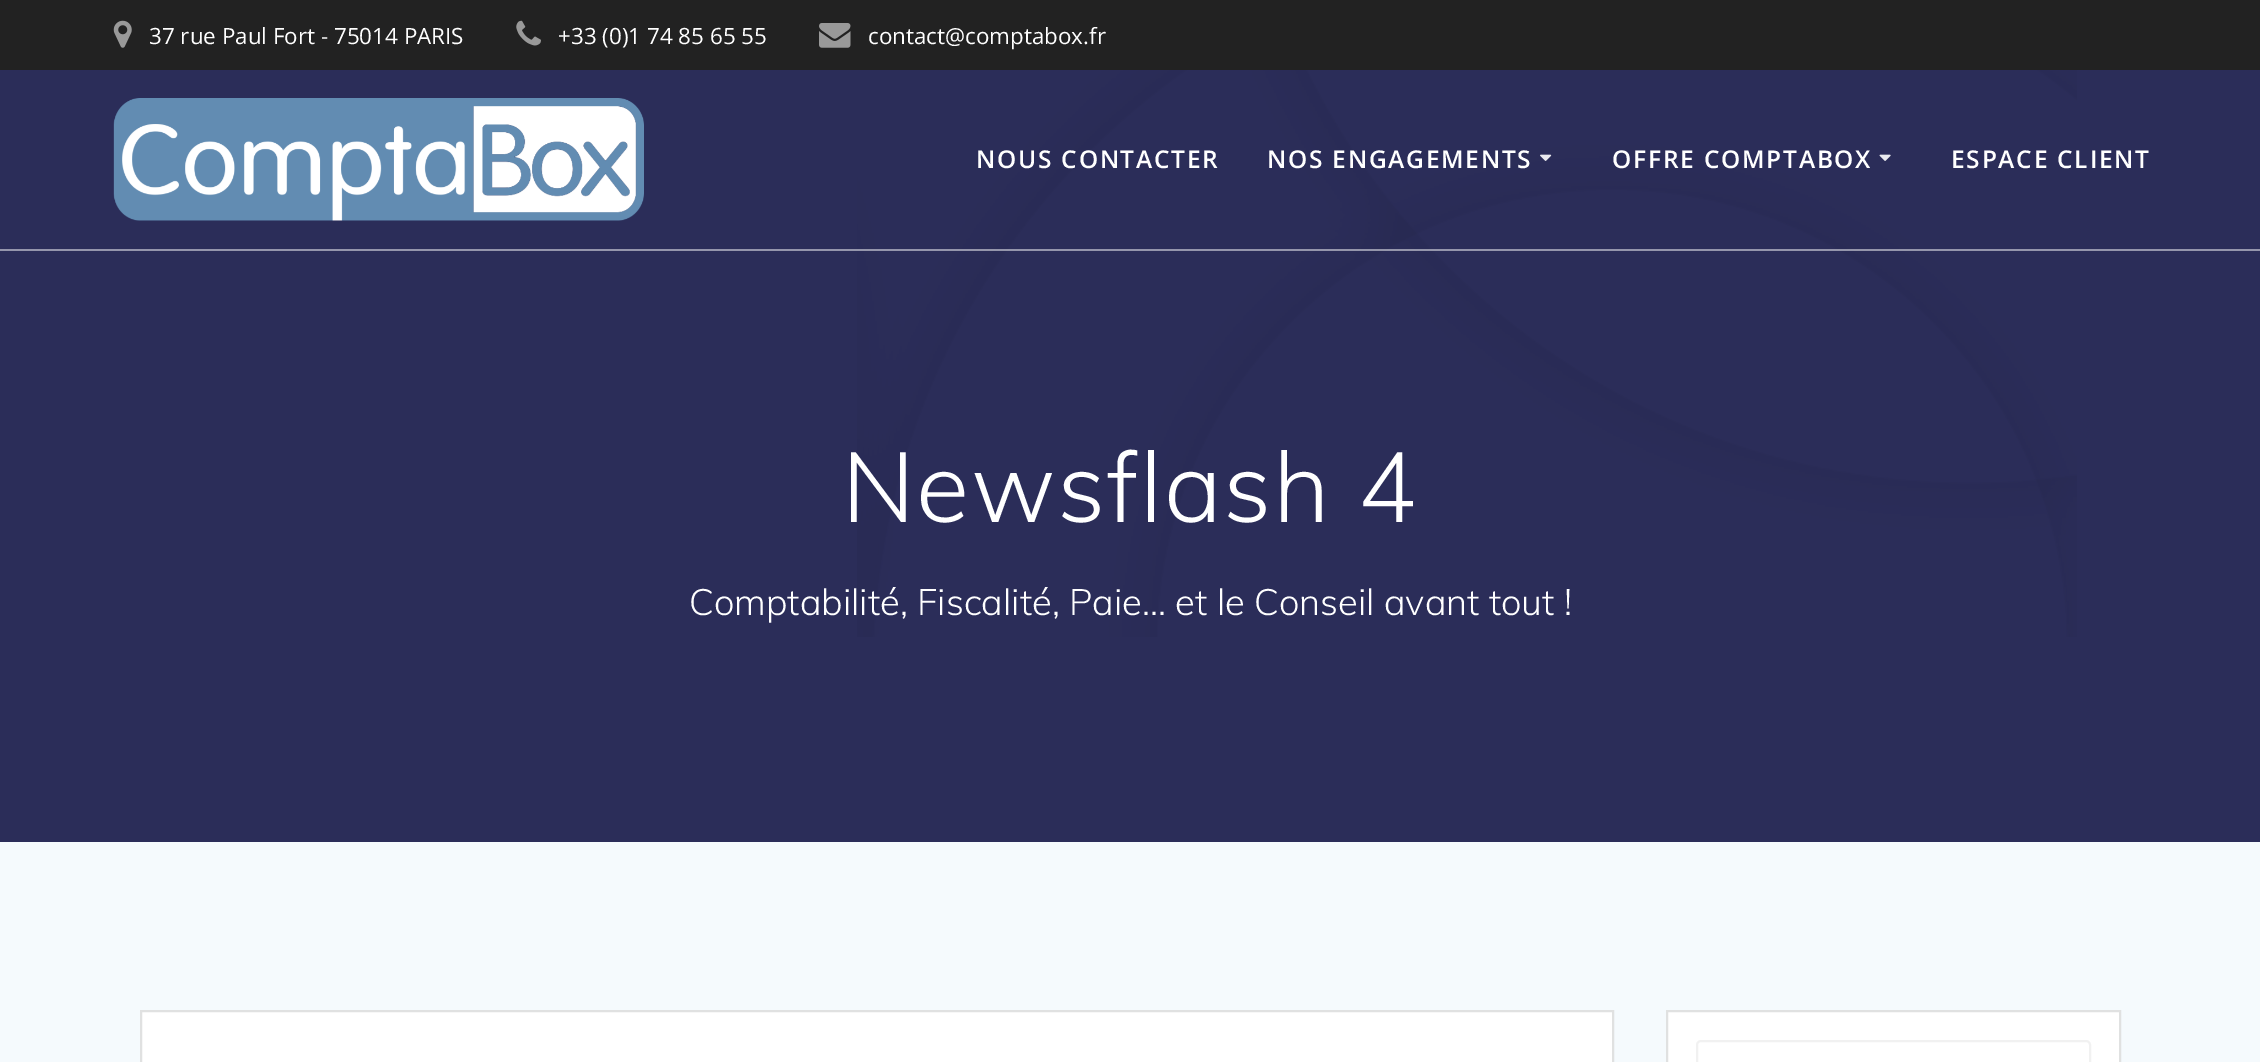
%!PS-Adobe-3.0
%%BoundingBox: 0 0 2260 1062
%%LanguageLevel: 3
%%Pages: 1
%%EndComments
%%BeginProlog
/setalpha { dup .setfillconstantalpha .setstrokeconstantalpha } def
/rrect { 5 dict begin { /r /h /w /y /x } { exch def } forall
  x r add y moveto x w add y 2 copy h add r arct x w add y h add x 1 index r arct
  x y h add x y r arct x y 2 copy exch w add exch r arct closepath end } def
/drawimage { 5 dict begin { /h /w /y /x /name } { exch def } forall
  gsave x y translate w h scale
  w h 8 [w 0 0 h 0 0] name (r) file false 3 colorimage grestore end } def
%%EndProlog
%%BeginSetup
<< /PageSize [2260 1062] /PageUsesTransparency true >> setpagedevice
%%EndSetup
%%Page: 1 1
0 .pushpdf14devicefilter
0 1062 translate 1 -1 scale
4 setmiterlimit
0.169 0.176 0.349 setrgbcolor
0 0 2260 1062 rectfill
0.133 setgray
0 0 2260 70 rectfill
(images/1.raw) 113 20 19 28 drawimage
(images/2.raw) 516 20 25 26 drawimage
(images/3.raw) 819 23 32 25 drawimage
(images/7.raw) 857 70 1220 567 drawimage
0.5 setalpha
1 setgray
0 249 2260 2 rectfill
1 setalpha
(images/4.raw) 113 98 531 123 drawimage
(images/5.raw) 1540 154 12 7 drawimage
(images/6.raw) 1879 154 12 7 drawimage
0.961 0.98 0.992 setrgbcolor
0 842 2260 220 rectfill
1 setgray
newpath 141 1011 moveto 1613 1011 lineto 1613 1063 lineto 141 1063 lineto closepath gsave fill grestore
0.878 0.882 0.882 setrgbcolor
2 setlinewidth
stroke
1 setgray
newpath 1667 1011 moveto 2120 1011 lineto 2120 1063 lineto 1667 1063 lineto closepath gsave fill grestore
0.878 0.882 0.882 setrgbcolor
stroke
0.945 setgray
1697 1041 393 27 4 rrect stroke
/OpenSans-Regular [22.4 0 0 -22.4 0 0] selectfont
1 setgray
149 44 moveto (37 rue Paul Fort - 75014 PARIS) show
558 44 moveto (+33 \(0\)1 74 85 65 55) show
868 44 moveto (contact@comptabox.fr) show
/OpenSans-SemiBold [24.5 0 0 -24.5 0 0] selectfont
976 168 moveto 1.75 0 (NOUS CONTACTER) ashow
1267 168 moveto 1.75 0 (NOS ENGAGEMENTS) ashow
1612 168 moveto 1.75 0 (OFFRE COMPTABOX) ashow
1951 168 moveto 1.75 0 (ESPACE CLIENT) ashow
/Muli-Light [98 0 0 -98 0 0] selectfont
842 522 moveto 1.5 0 (Newsflash 4) ashow
/Muli-Light [36.4 0 0 -36.4 0 0] selectfont
689 615 moveto (Comptabilité, Fiscalité, Paie... et le Conseil avant tout !) show
.poppdf14devicefilter showpage
%%EOF
